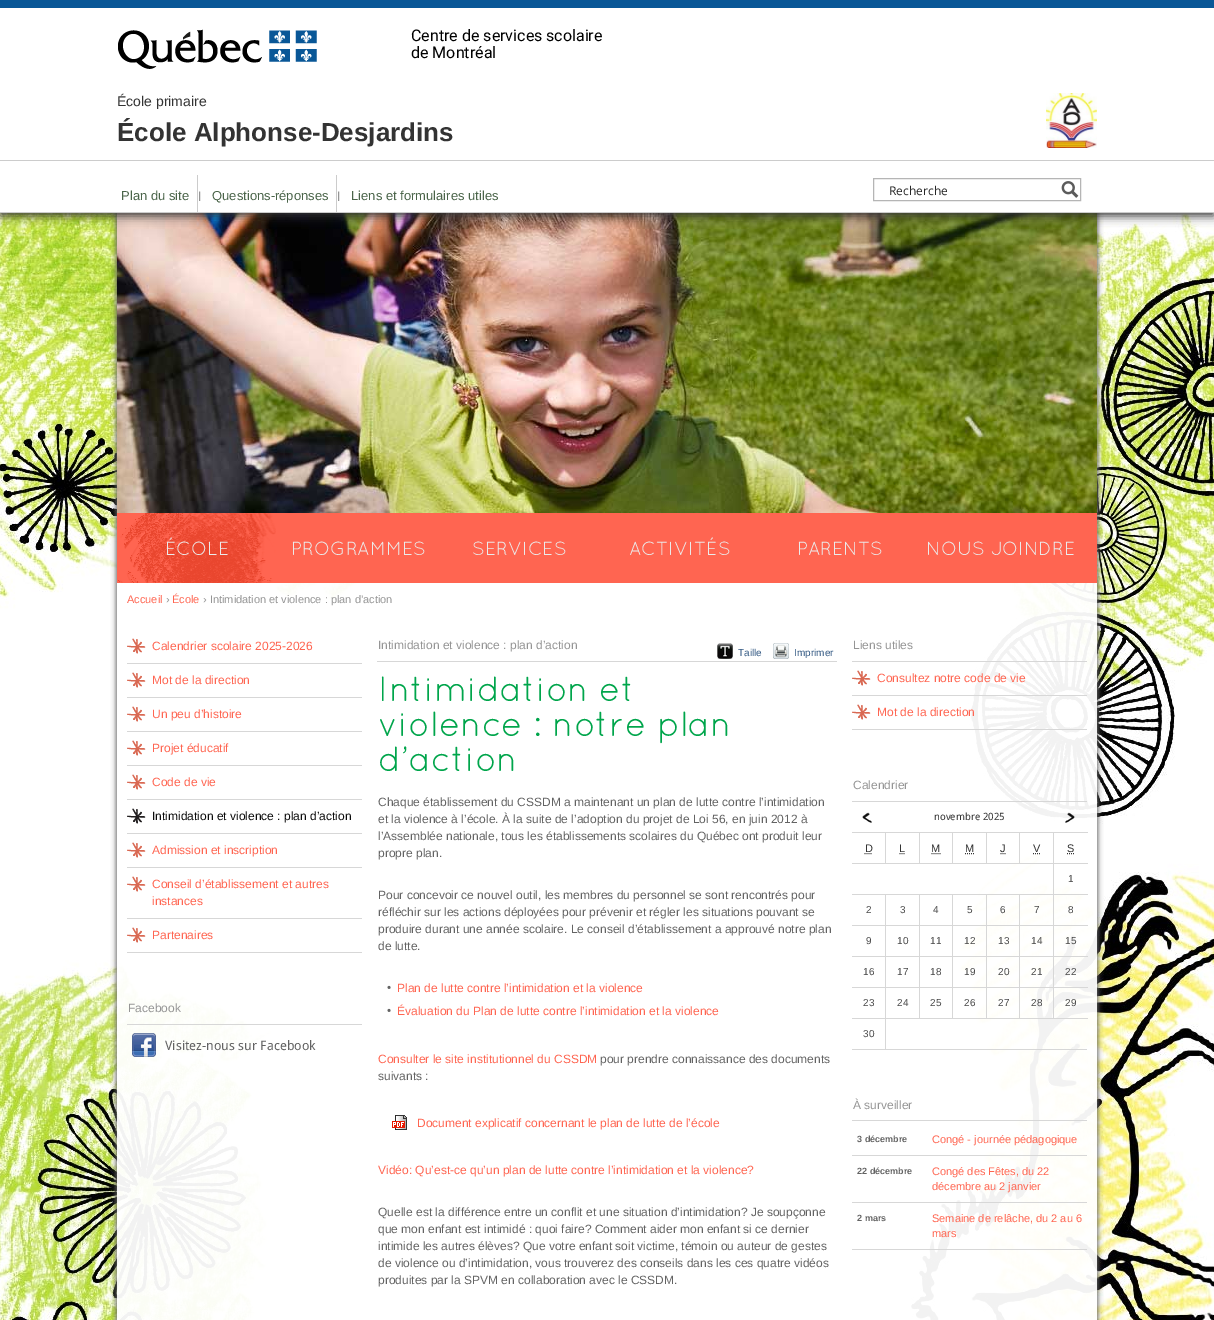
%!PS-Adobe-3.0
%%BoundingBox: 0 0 1214 1320
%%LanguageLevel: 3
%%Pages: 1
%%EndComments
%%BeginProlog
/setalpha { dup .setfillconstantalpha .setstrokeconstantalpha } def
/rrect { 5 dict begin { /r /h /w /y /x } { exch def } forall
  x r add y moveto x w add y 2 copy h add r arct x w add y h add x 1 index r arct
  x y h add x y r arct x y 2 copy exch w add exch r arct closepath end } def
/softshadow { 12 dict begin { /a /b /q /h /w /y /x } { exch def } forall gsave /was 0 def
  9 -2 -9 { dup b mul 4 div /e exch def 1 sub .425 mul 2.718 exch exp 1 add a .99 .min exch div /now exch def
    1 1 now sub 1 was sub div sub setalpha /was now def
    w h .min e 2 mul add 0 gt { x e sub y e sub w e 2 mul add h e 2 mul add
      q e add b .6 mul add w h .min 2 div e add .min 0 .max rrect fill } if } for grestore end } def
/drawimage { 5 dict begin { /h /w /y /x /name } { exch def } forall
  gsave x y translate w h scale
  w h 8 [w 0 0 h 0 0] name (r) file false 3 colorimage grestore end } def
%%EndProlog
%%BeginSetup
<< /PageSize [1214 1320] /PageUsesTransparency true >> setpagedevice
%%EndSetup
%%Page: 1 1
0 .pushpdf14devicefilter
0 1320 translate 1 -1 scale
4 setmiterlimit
1 setgray
0 0 1214 1320 rectfill
(images/1.raw) 0 213 1214 1107 drawimage
gsave
newpath 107 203 moveto 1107 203 lineto 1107 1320 lineto 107 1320 lineto closepath 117 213 moveto 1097 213 lineto 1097 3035 lineto 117 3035 lineto closepath eoclip newpath
0.4 setgray
116 212 982 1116 0 2.5 1 softshadow
grestore
(images/6.raw) 117 213 980 300 drawimage
0.2 setgray
0 3 1214 213 0 5 1 softshadow
1 setgray
0 8 1214 204 rectfill
0.8 setgray
0 212 1214 1 rectfill
0.035 0.341 0.592 setrgbcolor
0 0 1214 8 rectfill
(images/2.raw) 118 29 199 40 drawimage
(images/3.raw) 1046 93 51 55 drawimage
0.8 setgray
0 160 1214 1 rectfill
(images/4.raw) 199 191 2 10 drawimage
197 175 1 37 rectfill
(images/4.raw) 338 191 2 10 drawimage
336 175 1 37 rectfill
0.71 setgray
873.5 178.5 207 22 rectstroke
(images/5.raw) 1061 181 18 17 drawimage
0.95 setalpha
1 setgray
117 583 980 737 rectfill
1 setalpha
1 0.396 0.318 setrgbcolor
117 513 980 70 rectfill
(images/7.raw) 118 513 158 70 drawimage
0.843 setgray
127 663 235 1 rectfill
(images/8.raw) 127 638 19 16 drawimage
127 697 235 1 rectfill
(images/8.raw) 127 672 19 16 drawimage
127 731 235 1 rectfill
(images/8.raw) 127 706 19 16 drawimage
127 765 235 1 rectfill
(images/8.raw) 127 740 19 16 drawimage
127 799 235 1 rectfill
(images/8.raw) 127 774 19 16 drawimage
127 833 235 1 rectfill
(images/9.raw) 127 808 19 16 drawimage
127 867 235 1 rectfill
(images/8.raw) 127 842 19 16 drawimage
127 918 235 1 rectfill
(images/8.raw) 127 876 19 16 drawimage
127 952 235 1 rectfill
(images/8.raw) 127 927 19 16 drawimage
127 1024 235 1 rectfill
(images/10.raw) 132 1033 24 24 drawimage
377 661 460 1 rectfill
(images/11.raw) 717 643 16 16 drawimage
(images/12.raw) 773 643 16 16 drawimage
(images/13.raw) 387 985 4 4 drawimage
(images/13.raw) 387 1008 4 4 drawimage
(images/14.raw) 392 1115 15 15 drawimage
852 661 235 1 rectfill
852 695 235 1 rectfill
(images/8.raw) 852 670 19 16 drawimage
852 729 235 1 rectfill
(images/8.raw) 852 704 19 16 drawimage
852 801 235 1 rectfill
852 1049 235 1 rectfill
(images/15.raw) 862 812 10 11 drawimage
(images/16.raw) 1065 812 10 11 drawimage
1053 832 35 1 rectfill
1053 863 35 1 rectfill
1053 894 35 1 rectfill
1053 925 35 1 rectfill
1053 956 35 1 rectfill
1053 987 35 1 rectfill
885 1018 203 1 rectfill
1053 987 1 32 rectfill
1019 987 35 1 rectfill
1053 956 1 32 rectfill
1019 956 35 1 rectfill
1053 925 1 32 rectfill
1019 925 35 1 rectfill
1053 894 1 32 rectfill
1019 894 35 1 rectfill
1053 863 1 32 rectfill
852 863 202 1 rectfill
1053 832 1 32 rectfill
1019 832 35 1 rectfill
1019 832 1 32 rectfill
986 832 34 1 rectfill
986 832 1 32 rectfill
952 832 35 1 rectfill
952 832 1 32 rectfill
919 832 34 1 rectfill
919 832 1 32 rectfill
885 832 35 1 rectfill
885 832 1 32 rectfill
852 832 34 1 rectfill
0.2 setgray
[1 1] 0 setdash
newpath 864.5 853.5 moveto 872.5 853.5 lineto stroke
[] 0 setdash
newpath 899.5 853.5 moveto 900.5 853.5 lineto 901.5 853.5 moveto 902.5 853.5 lineto 903.5 853.5 moveto 904.5 853.5 lineto 905.5 853.5 moveto 905.5 853.5 lineto stroke
[1 1] 0 setdash
newpath 931.5 853.5 moveto 940.5 853.5 lineto stroke
newpath 965 853.5 moveto 974 853.5 lineto stroke
[] 0 setdash
newpath 1000.5 853.5 moveto 1001.5 853.5 lineto 1002.5 853.5 moveto 1003.5 853.5 lineto 1004.5 853.5 moveto 1005.5 853.5 lineto stroke
[1 1] 0 setdash
newpath 1033 853.5 moveto 1040.5 853.5 lineto stroke
newpath 1067 853.5 moveto 1074 853.5 lineto stroke
0.843 setgray
1019 987 1 32 rectfill
986 987 34 1 rectfill
1019 956 1 32 rectfill
986 956 34 1 rectfill
1019 925 1 32 rectfill
986 925 34 1 rectfill
1019 894 1 32 rectfill
986 894 34 1 rectfill
986 987 1 32 rectfill
952 987 35 1 rectfill
986 956 1 32 rectfill
952 956 35 1 rectfill
986 925 1 32 rectfill
952 925 35 1 rectfill
986 894 1 32 rectfill
952 894 35 1 rectfill
952 987 1 32 rectfill
919 987 34 1 rectfill
952 956 1 32 rectfill
919 956 34 1 rectfill
952 925 1 32 rectfill
919 925 34 1 rectfill
952 894 1 32 rectfill
919 894 34 1 rectfill
919 987 1 32 rectfill
885 987 35 1 rectfill
919 956 1 32 rectfill
885 956 35 1 rectfill
919 925 1 32 rectfill
885 925 35 1 rectfill
919 894 1 32 rectfill
885 894 35 1 rectfill
885 1018 1 32 rectfill
852 1018 34 1 rectfill
885 987 1 32 rectfill
852 987 34 1 rectfill
885 956 1 32 rectfill
852 956 34 1 rectfill
885 925 1 32 rectfill
852 925 34 1 rectfill
885 894 1 32 rectfill
852 894 34 1 rectfill
852 1120 235 1 rectfill
852 1155 235 1 rectfill
852 1202 235 1 rectfill
852 1249 235 1 rectfill
/Roboto-Regular [16 0 0 -16 0 0] selectfont
0 setgray
411 41 moveto (Centre de services scolaire) show
411 58 moveto (de Montréal) show
/LiberationSans-Regular [14 0 0 -14 0 0] selectfont
0.2 setgray
117 106 moveto (École primaire) show
/LiberationSans-Bold [26 0 0 -26 0 0] selectfont
117 141 moveto (École Alphonse-Desjardins) show
/LiberationSans-Regular [13 0 0 -13 0 0] selectfont
0.29 0.392 0.286 setrgbcolor
121 200 moveto (Plan du site) show
212 200 moveto (Questions-réponses) show
351 200 moveto (Liens et formulaires utiles) show
/OpenSans-Regular [12 0 0 -12 0 0] selectfont
0.149 setgray
889 195 moveto (Recherche) show
/Quicksand-Regular [19 0 0 -19 0 0] selectfont
0.922 setgray
165 555 moveto (ÉCOLE) show
291 555 moveto (PROGRAMMES) show
472 555 moveto (SERVICES) show
629 555 moveto (ACTIVITÉS) show
797 555 moveto (PARENTS) show
926 555 moveto (NOUS JOINDRE) show
/LiberationSans-Regular [11 0 0 -11 0 0] selectfont
1 0.396 0.318 setrgbcolor
127 603 moveto (Accueil) show
0.584 setgray
166 603 moveto (›) show
1 0.396 0.318 setrgbcolor
172 603 moveto (École) show
0.584 setgray
203 603 moveto (› Intimidation et violence : plan d’action) show
/LiberationSans-Regular [12 0 0 -12 0 0] selectfont
1 0.396 0.318 setrgbcolor
152 650 moveto (Calendrier scolaire 2025-2026) show
152 684 moveto (Mot de la direction) show
152 718 moveto (Un peu d’histoire) show
152 752 moveto (Projet éducatif) show
152 786 moveto (Code de vie) show
0.043 setgray
152 820 moveto (Intimidation et violence : plan d’action) show
1 0.396 0.318 setrgbcolor
152 854 moveto (Admission et inscription) show
152 888 moveto (Conseil d’établissement et autres) show
152 905 moveto (instances) show
152 939 moveto (Partenaires) show
0.584 setgray
128 1012 moveto (Facebook) show
/DroidSans-Regular [13 0 0 -13 0 0] selectfont
0.388 setgray
165 1050 moveto (Visitez-nous sur Facebook) show
/LiberationSans-Regular [12 0 0 -12 0 0] selectfont
0.584 setgray
378 649 moveto (Intimidation et violence : plan d’action) show
/LiberationSans-Regular [10 0 0 -10 0 0] selectfont
0.192 0.341 0.506 setrgbcolor
738 656 moveto (Taille) show
794 656 moveto (Imprimer) show
/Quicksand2-Regular [35 0 0 -35 0 0] selectfont
0 0.647 0.294 setrgbcolor
378 701 moveto (Intimidation et) show
378 736 moveto (violence : notre plan) show
378 771 moveto (d’action) show
/LiberationSans-Regular [12 0 0 -12 0 0] selectfont
0.388 setgray
378 806 moveto (Chaque établissement du CSSDM a maintenant un plan de lutte contre l’intimidation) show
378 823 moveto (et la violence à l’école. À la suite de l’adoption du projet de Loi 56, en juin 2012 à) show
378 840 moveto (l’Assemblée nationale, tous les établissements scolaires du Québec ont produit leur) show
378 857 moveto (propre plan.) show
378 899 moveto (Pour concevoir ce nouvel outil, les membres du personnel se sont rencontrés pour) show
378 916 moveto (réfléchir sur les actions déployées pour prévenir et régler les situations pouvant se) show
378 933 moveto (produire durant une année scolaire. Le conseil d’établissement a approuvé notre plan) show
378 950 moveto (de lutte.) show
1 0.396 0.318 setrgbcolor
397 992 moveto (Plan de lutte contre l’intimidation et la violence) show
397 1015 moveto (Évaluation du Plan de lutte contre l’intimidation et la violence) show
378 1063 moveto (Consulter le site institutionnel du CSSDM) show
0.388 setgray
600 1063 moveto (pour prendre connaissance des documents) show
378 1080 moveto (suivants :) show
1 0.396 0.318 setrgbcolor
417 1127 moveto (Document explicatif concernant le plan de lutte de l’école) show
378 1174 moveto (Vidéo: Qu’est-ce qu’un plan de lutte contre l’intimidation et la violence?) show
0.388 setgray
378 1216 moveto (Quelle est la différence entre un conflit et une situation d’intimidation? Je soupçonne) show
378 1233 moveto (que mon enfant est intimidé : quoi faire? Comment aider mon enfant si ce dernier) show
378 1250 moveto (intimide les autres élèves? Que votre enfant soit victime, témoin ou auteur de gestes) show
378 1267 moveto (de violence ou d’intimidation, vous trouverez des conseils dans les ces quatre vidéos) show
378 1284 moveto (produites par la SPVM en collaboration avec le CSSDM.) show
0.584 setgray
853 649 moveto (Liens utiles) show
1 0.396 0.318 setrgbcolor
877 682 moveto (Consultez notre code de vie) show
877 716 moveto (Mot de la direction) show
0.584 setgray
853 789 moveto (Calendrier) show
/DroidSans-Regular [10 0 0 -10 0 0] selectfont
0.2 setgray
934 820 moveto (novembre 2025) show
/LiberationSans-Regular [11 0 0 -11 0 0] selectfont
865 852 moveto (D) show
899 852 moveto (L) show
931 852 moveto (M) show
965 852 moveto (M) show
1000 852 moveto (J) show
1033 852 moveto (V) show
1067 852 moveto (S) show
/LiberationSans-Regular [10 0 0 -10 0 0] selectfont
0.275 setgray
1068 882 moveto (1) show
866 913 moveto (2) show
900 913 moveto (3) show
933 913 moveto (4) show
967 913 moveto (5) show
1000 913 moveto (6) show
1034 913 moveto (7) show
1068 913 moveto (8) show
866 944 moveto (9) show
897 944 moveto (10) show
930 944 moveto (11) show
964 944 moveto (12) show
998 944 moveto (13) show
1031 944 moveto (14) show
1065 944 moveto (15) show
863 975 moveto (16) show
897 975 moveto (17) show
930 975 moveto (18) show
964 975 moveto (19) show
998 975 moveto (20) show
1031 975 moveto (21) show
1065 975 moveto (22) show
863 1006 moveto (23) show
897 1006 moveto (24) show
930 1006 moveto (25) show
964 1006 moveto (26) show
998 1006 moveto (27) show
1031 1006 moveto (28) show
1065 1006 moveto (29) show
863 1037 moveto (30) show
/LiberationSans-Regular [12 0 0 -12 0 0] selectfont
0.584 setgray
853 1109 moveto (À surveiller) show
/LiberationSans-Bold [9 0 0 -9 0 0] selectfont
0.388 setgray
857 1142 moveto (3 décembre) show
/LiberationSans-Regular [11 0 0 -11 0 0] selectfont
1 0.396 0.318 setrgbcolor
932 1143 moveto (Congé - journée pédagogique) show
/LiberationSans-Bold [9 0 0 -9 0 0] selectfont
0.388 setgray
857 1174 moveto (22 décembre) show
/LiberationSans-Regular [11 0 0 -11 0 0] selectfont
1 0.396 0.318 setrgbcolor
932 1175 moveto (Congé des Fêtes, du 22) show
932 1190 moveto (décembre au 2 janvier) show
/LiberationSans-Bold [9 0 0 -9 0 0] selectfont
0.388 setgray
857 1221 moveto (2 mars) show
/LiberationSans-Regular [11 0 0 -11 0 0] selectfont
1 0.396 0.318 setrgbcolor
932 1222 moveto (Semaine de relâche, du 2 au 6) show
932 1237 moveto (mars) show
.poppdf14devicefilter showpage
%%EOF
